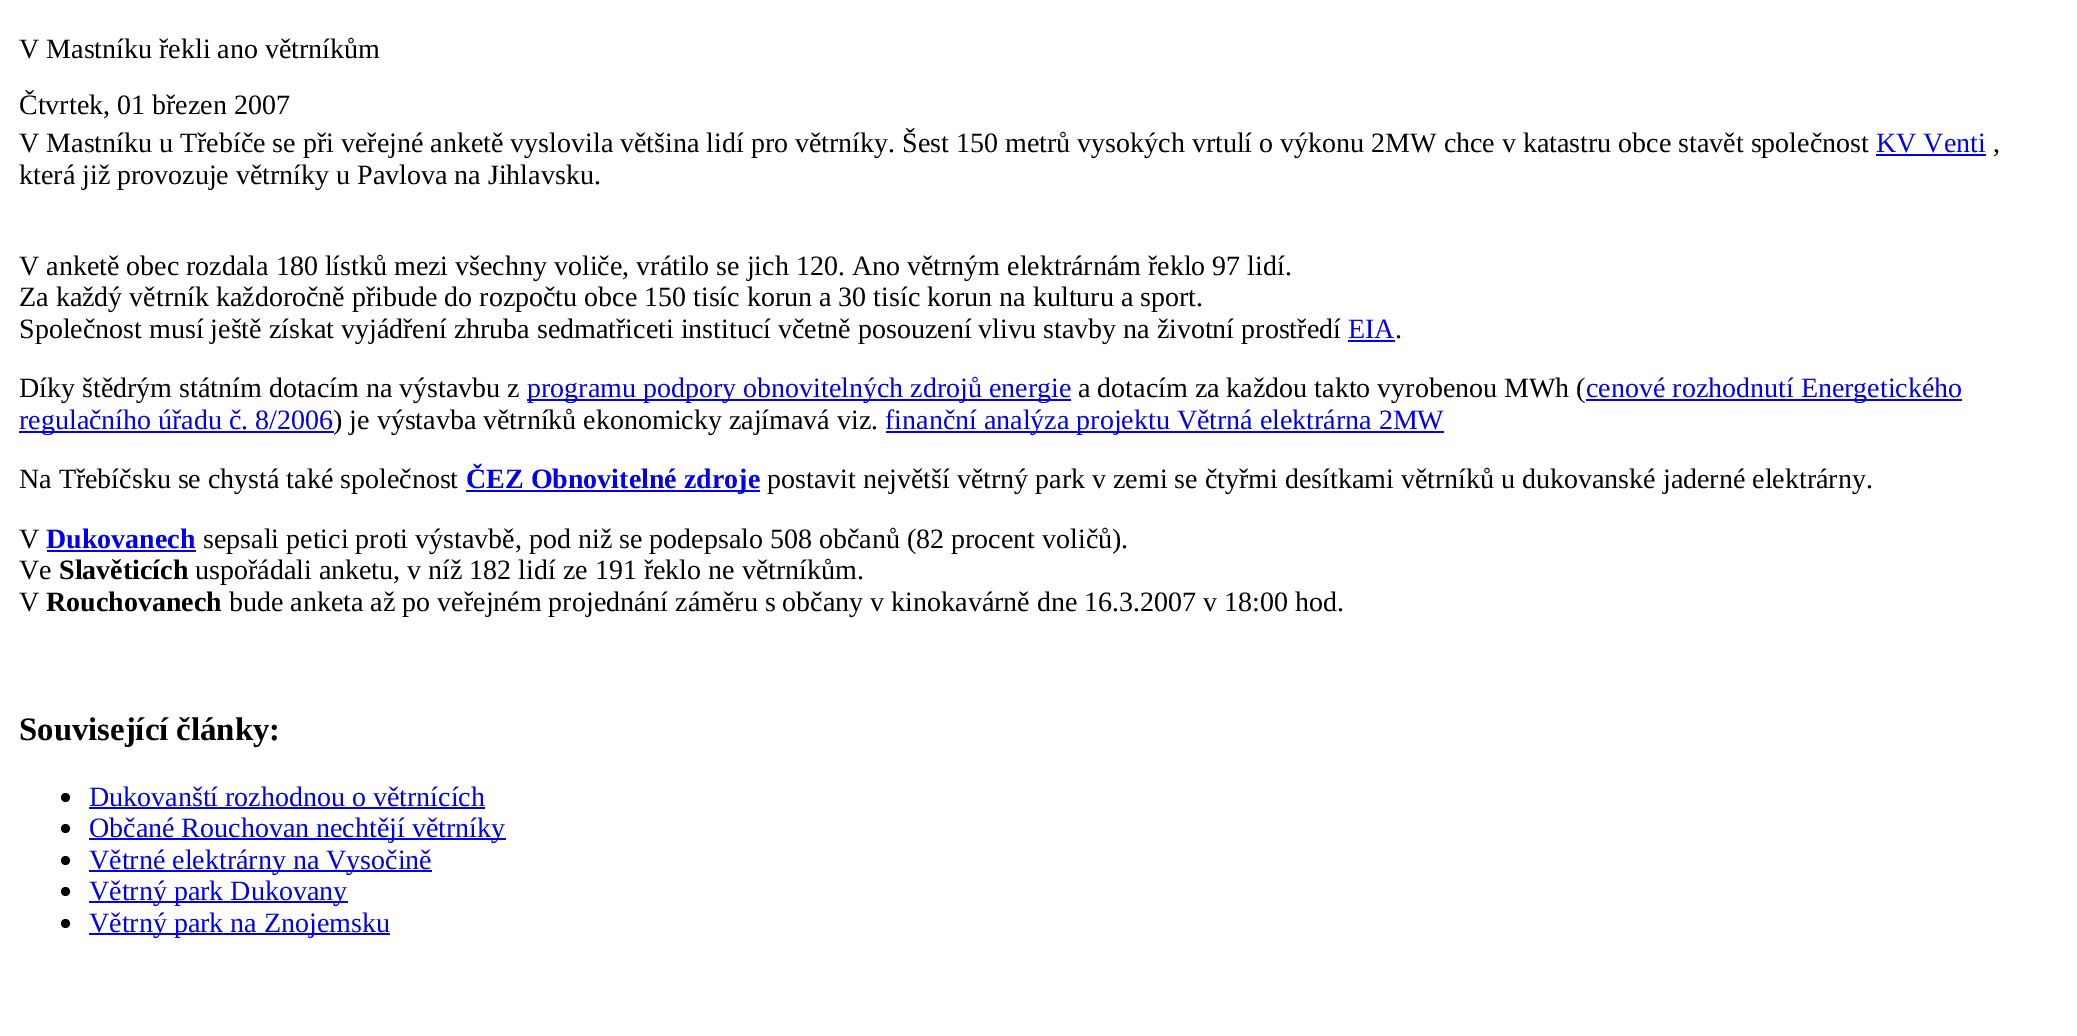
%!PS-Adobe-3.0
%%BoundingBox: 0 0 2077 1036
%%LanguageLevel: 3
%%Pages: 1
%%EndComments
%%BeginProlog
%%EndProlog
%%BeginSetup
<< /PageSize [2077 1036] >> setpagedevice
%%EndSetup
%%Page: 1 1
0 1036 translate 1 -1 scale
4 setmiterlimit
1 setgray
0 0 2077 1036 rectfill
0 0 0.933 setrgbcolor
1876 154 110 2 rectfill
1348 340 47 2 rectfill
527 399 544 2 rectfill
1586 399 376 2 rectfill
19 431 315 2 rectfill
886 431 558 2 rectfill
466 490 294 2 rectfill
47 550 149 2 rectfill
0 setgray
newpath 65.5 797.5 4.5 0 360 arc closepath fill
0 0 0.933 setrgbcolor
89 807 396 2 rectfill
0 setgray
newpath 65.5 828.5 4.5 0 360 arc closepath fill
0 0 0.933 setrgbcolor
89 838 417 2 rectfill
0 setgray
newpath 65.5 860.5 4.5 0 360 arc closepath fill
0 0 0.933 setrgbcolor
89 870 343 2 rectfill
0 setgray
newpath 65.5 891.5 4.5 0 360 arc closepath fill
0 0 0.933 setrgbcolor
89 901 259 2 rectfill
0 setgray
newpath 65.5 923.5 4.5 0 360 arc closepath fill
0 0 0.933 setrgbcolor
89 933 301 2 rectfill
/LiberationSerif-Regular [28 0 0 -28 0 0] selectfont
0 setgray
19 58 moveto (V Mastníku řekli ano větrníkům) show
19 114 moveto (Čtvrtek, 01 březen 2007) show
19 152 moveto (V Mastníku u Třebíče se při veřejné anketě vyslovila většina lidí pro větrníky. Šest 150 metrů vysokých vrtulí o výkonu 2MW chce v katastru obce stavět společnost) show
0 0 0.933 setrgbcolor
1876 152 moveto (KV Venti) show
0 setgray
1993 152 moveto (,) show
19 184 moveto (která již provozuje větrníky u Pavlova na Jihlavsku.) show
19 275 moveto (V anketě obec rozdala 180 lístků mezi všechny voliče, vrátilo se jich 120. Ano větrným elektrárnám řeklo 97 lidí.) show
19 306 moveto (Za každý větrník každoročně přibude do rozpočtu obce 150 tisíc korun a 30 tisíc korun na kulturu a sport.) show
19 338 moveto (Společnost musí ještě získat vyjádření zhruba sedmatřiceti institucí včetně posouzení vlivu stavby na životní prostředí) show
0 0 0.933 setrgbcolor
1348 338 moveto (EIA) show
0 setgray
1395 338 moveto (.) show
19 397 moveto (Díky štědrým státním dotacím na výstavbu z) show
0 0 0.933 setrgbcolor
527 397 moveto (programu podpory obnovitelných zdrojů energie) show
0 setgray
1078 397 moveto (a dotacím za každou takto vyrobenou MWh \() show
0 0 0.933 setrgbcolor
1586 397 moveto (cenové rozhodnutí Energetického) show
19 429 moveto (regulačního úřadu č. 8/2006) show
0 setgray
333 429 moveto (\) je výstavba větrníků ekonomicky zajímavá viz.) show
0 0 0.933 setrgbcolor
885 429 moveto (finanční analýza projektu Větrná elektrárna 2MW) show
0 setgray
19 488 moveto (Na Třebíčsku se chystá také společnost) show
/LiberationSerif-Bold [28 0 0 -28 0 0] selectfont
0 0 0.933 setrgbcolor
466 488 moveto (ČEZ Obnovitelné zdroje) show
/LiberationSerif-Regular [28 0 0 -28 0 0] selectfont
0 setgray
767 488 moveto (postavit největší větrný park v zemi se čtyřmi desítkami větrníků u dukovanské jaderné elektrárny.) show
19 548 moveto (V) show
/LiberationSerif-Bold [28 0 0 -28 0 0] selectfont
0 0 0.933 setrgbcolor
46 548 moveto (Dukovanech) show
/LiberationSerif-Regular [28 0 0 -28 0 0] selectfont
0 setgray
203 548 moveto (sepsali petici proti výstavbě, pod niž se podepsalo 508 občanů \(82 procent voličů\).) show
19 579 moveto (Ve) show
/LiberationSerif-Bold [28 0 0 -28 0 0] selectfont
59 579 moveto (Slavěticích) show
/LiberationSerif-Regular [28 0 0 -28 0 0] selectfont
195 579 moveto (uspořádali anketu, v níž 182 lidí ze 191 řeklo ne větrníkům.) show
19 611 moveto (V) show
/LiberationSerif-Bold [28 0 0 -28 0 0] selectfont
46 611 moveto (Rouchovanech) show
/LiberationSerif-Regular [28 0 0 -28 0 0] selectfont
229 611 moveto (bude anketa až po veřejném projednání záměru s občany v kinokavárně dne 16.3.2007 v 18:00 hod.) show
/LiberationSerif-Bold [32.75 0 0 -32.75 0 0] selectfont
19 740 moveto (Související články:) show
/LiberationSerif-Regular [28 0 0 -28 0 0] selectfont
0 0 0.933 setrgbcolor
89 806 moveto (Dukovanští rozhodnou o větrnících) show
89 837 moveto (Občané Rouchovan nechtějí větrníky) show
89 869 moveto (Větrné elektrárny na Vysočině) show
89 900 moveto (Větrný park Dukovany) show
89 932 moveto (Větrný park na Znojemsku) show
showpage
%%EOF
